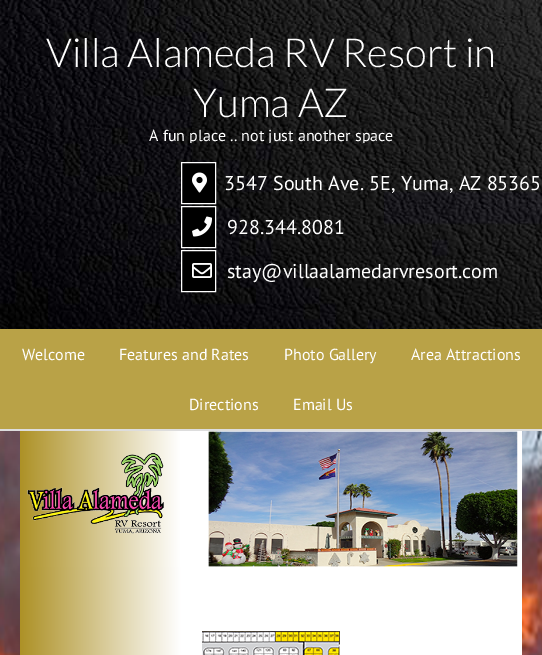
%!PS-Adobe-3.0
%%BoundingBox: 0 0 542 655
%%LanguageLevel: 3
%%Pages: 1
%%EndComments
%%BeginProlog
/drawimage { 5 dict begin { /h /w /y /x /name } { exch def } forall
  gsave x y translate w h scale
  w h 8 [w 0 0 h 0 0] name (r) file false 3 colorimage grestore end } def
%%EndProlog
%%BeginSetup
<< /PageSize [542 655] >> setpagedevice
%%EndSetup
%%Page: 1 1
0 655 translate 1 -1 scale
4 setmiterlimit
1 setgray
0 0 542 655 rectfill
(images/1.raw) 0 0 542 329 drawimage
0 setgray
newpath 181.5 162.5 moveto 215.5 162.5 lineto 215.5 203.5 lineto 181.5 203.5 lineto closepath gsave fill grestore
1 setgray
stroke
(images/2.raw) 192 172 15 21 drawimage
0 setgray
newpath 181.5 206.5 moveto 215.5 206.5 lineto 215.5 247.5 lineto 181.5 247.5 lineto closepath gsave fill grestore
1 setgray
stroke
(images/3.raw) 192 216 20 21 drawimage
0 setgray
newpath 181.5 250.5 moveto 215.5 250.5 lineto 215.5 291.5 lineto 181.5 291.5 lineto closepath gsave fill grestore
1 setgray
stroke
(images/4.raw) 192 263 20 15 drawimage
0.725 0.635 0.278 setrgbcolor
0 329 542 100 rectfill
0.867 setgray
0 429 542 2 rectfill
(images/5.raw) 0 431 542 224 drawimage
gsave newpath 20 431 moveto 522 431 lineto 522 655 lineto 20 655 lineto closepath clip newpath
<< /ShadingType 2 /ColorSpace /DeviceRGB /Coords [20 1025 522 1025] /Extend [true true] /Function << /FunctionType 3 /Domain [0 1] /Functions [<< /FunctionType 2 /Domain [0 1] /C0 [0.678 0.569 0.149] /C1 [1 1 1] /N 1 >> << /FunctionType 2 /Domain [0 1] /C0 [1 1 1] /C1 [1 1 1] /N 1 >>] /Bounds [0.32] /Encode [0 1 0 1] >> >> shfill grestore
(images/6.raw) 27 431 491 136 drawimage
(images/7.raw) 202 631 138 24 drawimage
/Lato-Light [40 0 0 -40 0 0] selectfont
1 setgray
46 67 moveto (Villa Alameda RV Resort in) show
193 117 moveto (Yuma AZ) show
gsave
0 15 542 128 rectclip
/PTSans-Regular [16 0 0 -16 0 0] selectfont
149 141 moveto (A fun place .. not just another space) show
grestore
/PTSans-Regular [20 0 0 -20 0 0] selectfont
224 190 moveto (3547 South Ave. 5E, Yuma, AZ 85365) show
227 234 moveto (928.344.8081) show
227 278 moveto (stay@villaalamedarvresort.com) show
/PTSans-Regular [16 0 0 -16 0 0] selectfont
22 360 moveto (Welcome) show
119 360 moveto (Features and Rates) show
284 360 moveto (Photo Gallery) show
411 360 moveto (Area Attractions) show
189 410 moveto (Directions) show
293 410 moveto (Email Us) show
showpage
%%EOF
